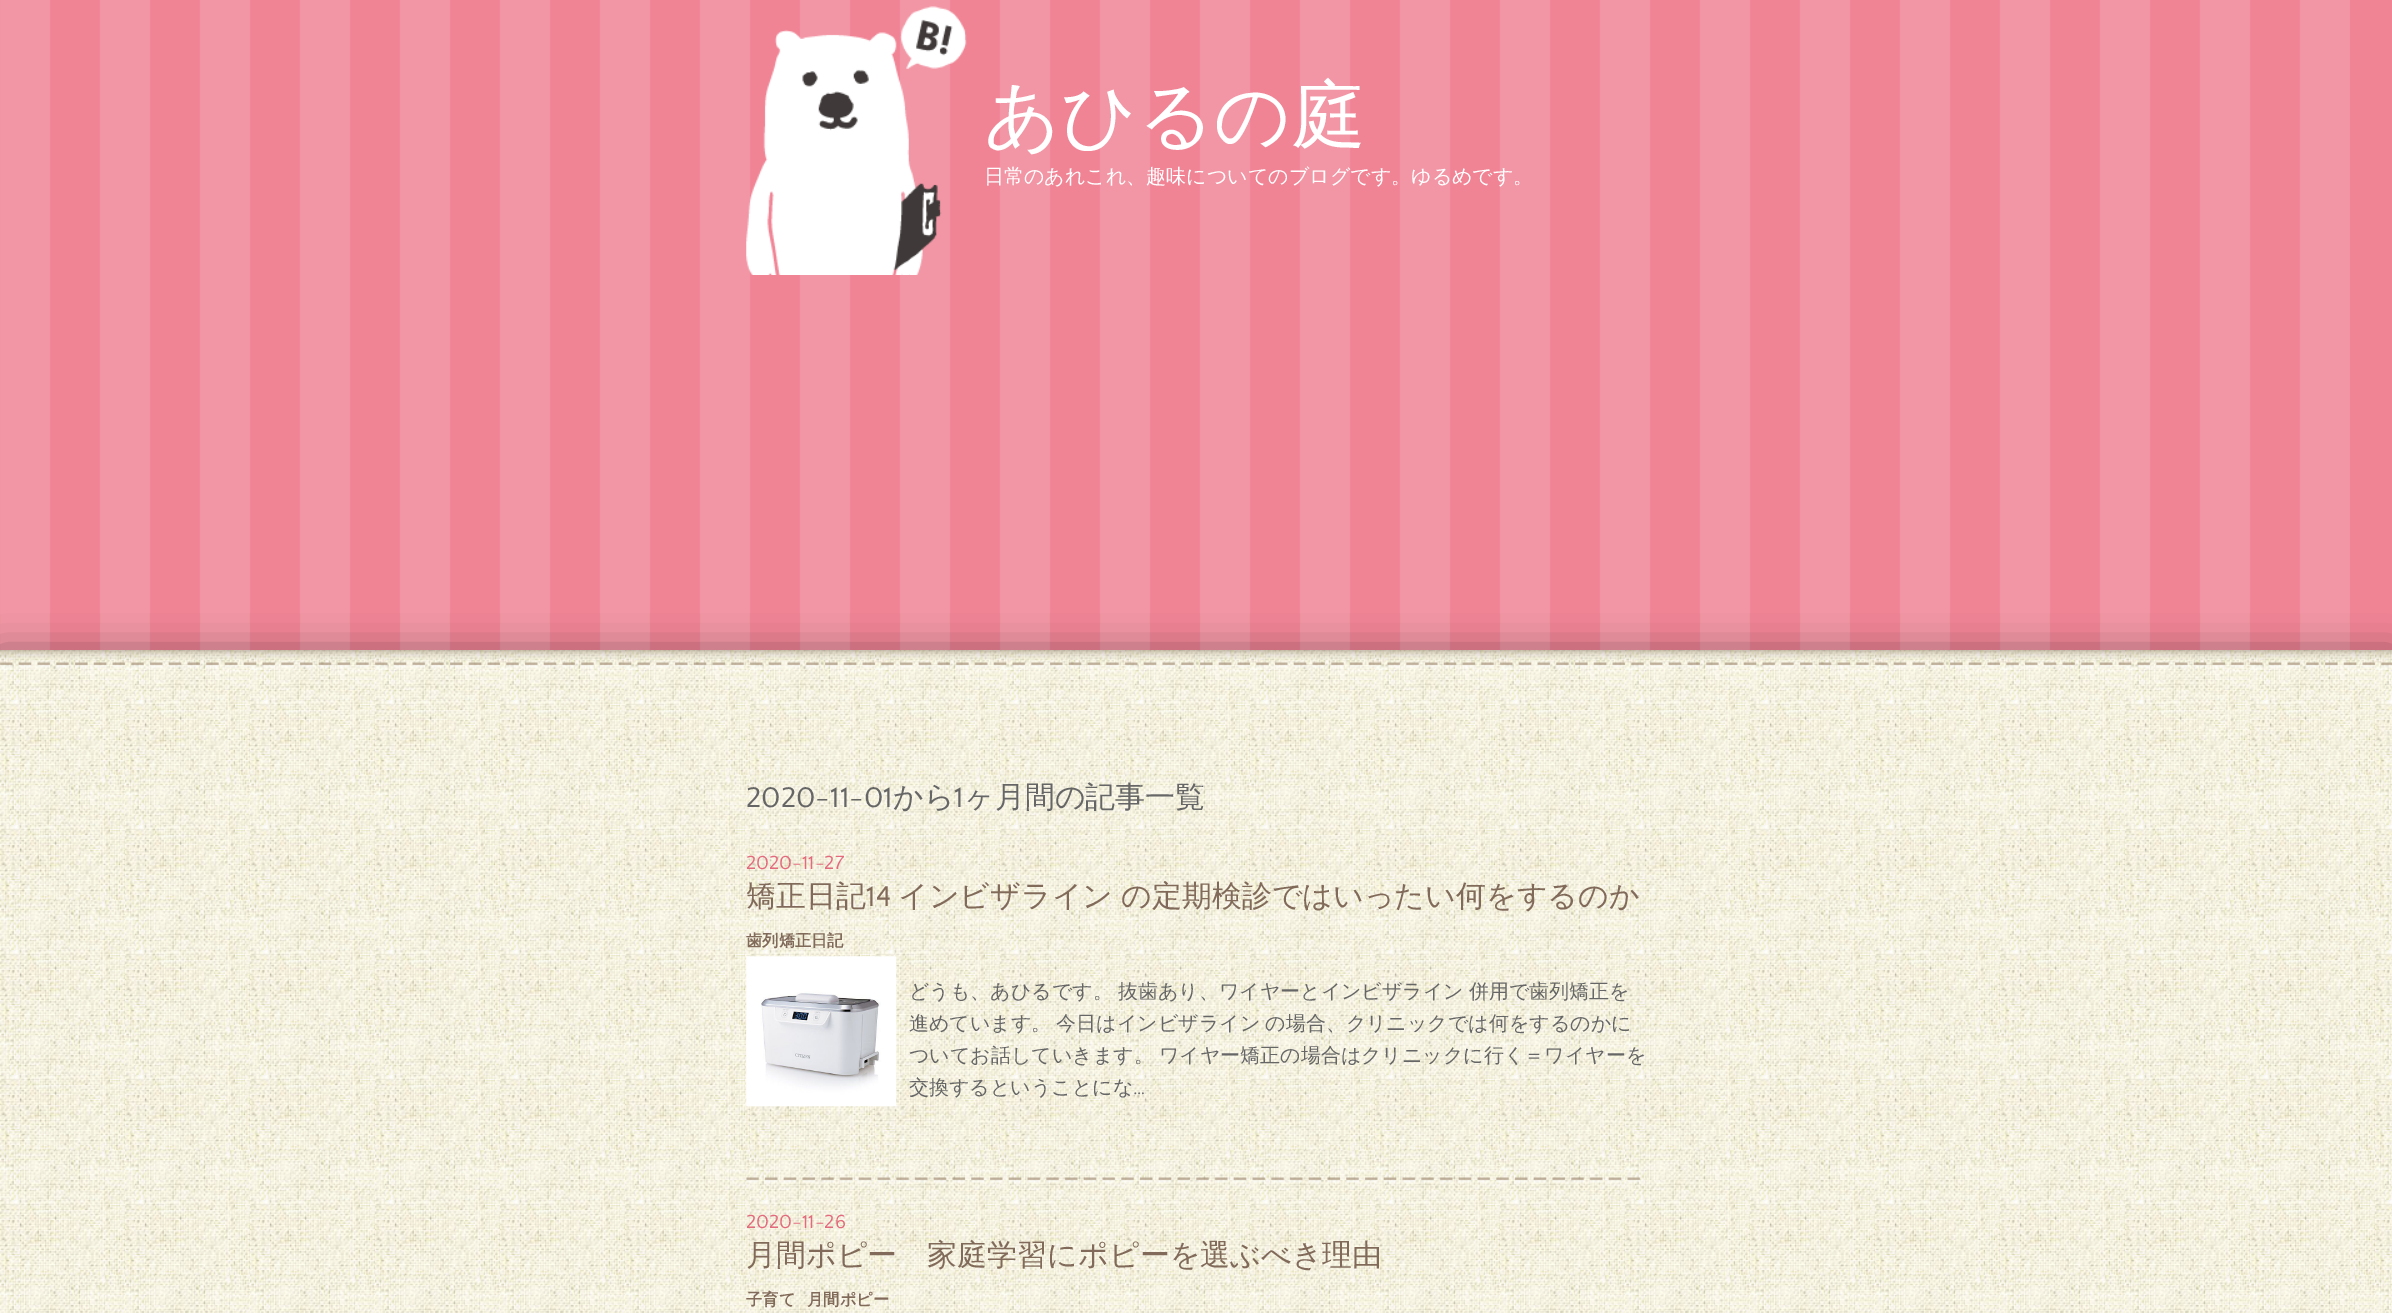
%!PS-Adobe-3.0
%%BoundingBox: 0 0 2392 1313
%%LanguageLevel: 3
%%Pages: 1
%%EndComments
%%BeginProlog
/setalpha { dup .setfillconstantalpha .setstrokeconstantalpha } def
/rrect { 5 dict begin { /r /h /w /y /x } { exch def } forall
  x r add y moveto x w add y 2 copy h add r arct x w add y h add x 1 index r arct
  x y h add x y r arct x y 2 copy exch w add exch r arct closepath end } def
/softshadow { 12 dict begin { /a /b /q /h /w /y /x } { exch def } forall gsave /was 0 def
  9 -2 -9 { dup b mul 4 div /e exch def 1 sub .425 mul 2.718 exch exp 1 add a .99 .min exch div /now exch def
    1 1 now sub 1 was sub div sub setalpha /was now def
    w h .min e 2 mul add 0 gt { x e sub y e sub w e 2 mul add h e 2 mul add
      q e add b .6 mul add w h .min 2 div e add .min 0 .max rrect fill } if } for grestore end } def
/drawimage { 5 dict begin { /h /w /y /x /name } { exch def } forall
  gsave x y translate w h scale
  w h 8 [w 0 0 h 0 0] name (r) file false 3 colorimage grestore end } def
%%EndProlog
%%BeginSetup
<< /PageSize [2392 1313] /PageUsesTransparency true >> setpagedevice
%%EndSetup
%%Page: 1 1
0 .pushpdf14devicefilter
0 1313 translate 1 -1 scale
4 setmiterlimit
0.941 0.518 0.584 setrgbcolor
0 0 2392 1313 rectfill
(images/1.raw) 0 0 2350 650 drawimage
(images/2.raw) 746 6 221 269 drawimage
0 setgray
0 656 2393 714 0 19 0.5 softshadow
(images/3.raw) 0 650 2392 663 drawimage
(images/4.raw) 0 650 2392 18 drawimage
(images/5.raw) 746 1177 901 6 drawimage
(images/6.raw) 746 956 151 151 drawimage
/WenQuanYiZenHei-Medium [75 0 0 -75 0 0] selectfont
1 setgray
984 141 moveto (あひるの庭) show
/WenQuanYiZenHei-Medium [20 0 0 -20 0 0] selectfont
984 183 moveto (日常のあれこれ、趣味についてのブログです。ゆるめです。) show
/QuattrocentoSans-Regular [30 0 0 -30 0 0] selectfont
0.4 setgray
746 807 moveto (2020-11-01) show
/WenQuanYiZenHei-Medium [30 0 0 -30 0 0] selectfont
893 807 moveto (から) show
/QuattrocentoSans-Regular [30 0 0 -30 0 0] selectfont
954 807 moveto (1) show
/WenQuanYiZenHei-Medium [30 0 0 -30 0 0] selectfont
964 807 moveto (ヶ月間の記事一覧) show
/QuattrocentoSans-Regular [20 0 0 -20 0 0] selectfont
0.89 0.416 0.49 setrgbcolor
746 869 moveto (2020-11-27) show
/WenQuanYiZenHei-Medium [30 0 0 -30 0 0] selectfont
0.506 0.416 0.349 setrgbcolor
746 906 moveto (矯正日記) show
/QuattrocentoSans-Regular [30 0 0 -30 0 0] selectfont
866 906 moveto (14) show
/WenQuanYiZenHei-Medium [30 0 0 -30 0 0] selectfont
898 906 moveto -1 0 32 (インビザライン の定期検診ではいったい何をするのか) widthshow
/WenQuanYiZenHei-Bold [16.25 0 0 -16.25 0 0] selectfont
746 946 moveto (歯列矯正日記) show
/WenQuanYiZenHei-Medium [20 0 0 -20 0 0] selectfont
0.4 setgray
909 998 moveto -1 0 32 (どうも、あひるです。 抜歯あり、ワイヤーとインビザライン 併用で歯列矯正を) widthshow
909 1030 moveto -1 0 32 (進めています。 今日はインビザライン の場合、クリニックでは何をするのかに) widthshow
909 1062 moveto -1 0 32 (ついてお話していきます。 ワイヤー矯正の場合はクリニックに行く＝ワイヤーを) widthshow
909 1094 moveto (交換するということにな) show
/QuattrocentoSans-Regular [20 0 0 -20 0 0] selectfont
1133 1094 moveto (…) show
0.89 0.416 0.49 setrgbcolor
746 1228 moveto (2020-11-26) show
/WenQuanYiZenHei-Medium [30 0 0 -30 0 0] selectfont
0.506 0.416 0.349 setrgbcolor
746 1265 moveto (月間ポピー　家庭学習にポピーを選ぶべき理由) show
/WenQuanYiZenHei-Bold [16.25 0 0 -16.25 0 0] selectfont
746 1305 moveto (子育て) show
807 1305 moveto (月間ポピー) show
.poppdf14devicefilter showpage
%%EOF
